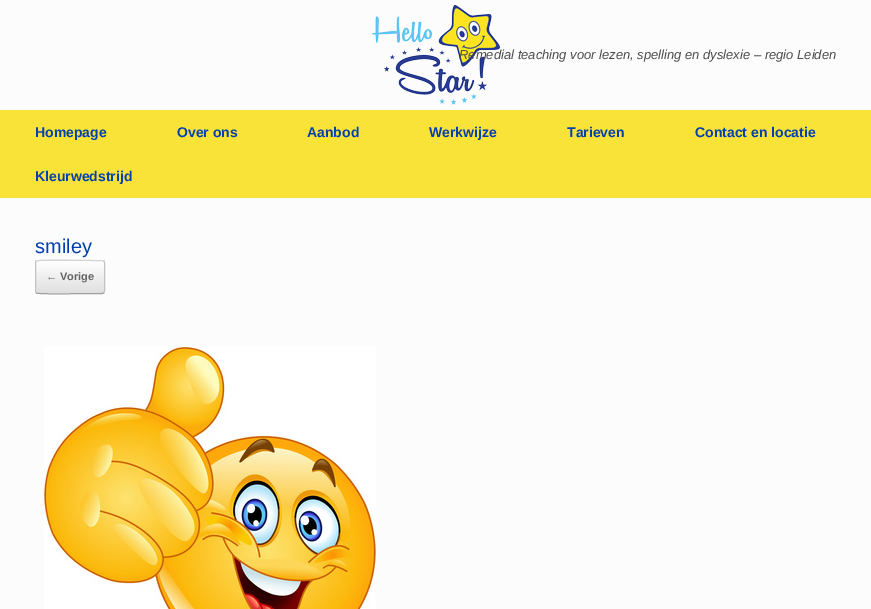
%!PS-Adobe-3.0
%%BoundingBox: 0 0 871 609
%%LanguageLevel: 3
%%Pages: 1
%%EndComments
%%BeginProlog
/rrect { 5 dict begin { /r /h /w /y /x } { exch def } forall
  x r add y moveto x w add y 2 copy h add r arct x w add y h add x 1 index r arct
  x y h add x y r arct x y 2 copy exch w add exch r arct closepath end } def
/drawimage { 5 dict begin { /h /w /y /x /name } { exch def } forall
  gsave x y translate w h scale
  w h 8 [w 0 0 h 0 0] name (r) file false 3 colorimage grestore end } def
%%EndProlog
%%BeginSetup
<< /PageSize [871 609] >> setpagedevice
%%EndSetup
%%Page: 1 1
0 609 translate 1 -1 scale
4 setmiterlimit
0.988 setgray
0 0 871 609 rectfill
(images/1.raw) 372 5 128 100 drawimage
0.98 0.89 0.224 setrgbcolor
0 110 871 88 rectfill
gsave
35 260 70 34 3 rrect clip newpath
gsave newpath 35 260 moveto 105 260 lineto 105 261 lineto 35 261 lineto closepath clip newpath
<< /ShadingType 2 /ColorSpace /DeviceRGB /Coords [36 261 36 229] /Extend [true true] /Function << /FunctionType 2 /Domain [0 1] /C0 [0.875 0.875 0.875] /C1 [1 1 1] /N 1 >> >> shfill grestore
gsave newpath 35 261 moveto 105 261 lineto 105 293 lineto 35 293 lineto closepath clip newpath
<< /ShadingType 2 /ColorSpace /DeviceRGB /Coords [36 293 36 261] /Extend [true true] /Function << /FunctionType 2 /Domain [0 1] /C0 [0.875 0.875 0.875] /C1 [1 1 1] /N 1 >> >> shfill grestore
gsave newpath 35 293 moveto 105 293 lineto 105 294 lineto 35 294 lineto closepath clip newpath
<< /ShadingType 2 /ColorSpace /DeviceRGB /Coords [36 325 36 293] /Extend [true true] /Function << /FunctionType 2 /Domain [0 1] /C0 [0.875 0.875 0.875] /C1 [1 1 1] /N 1 >> >> shfill grestore
grestore
0.824 setgray
newpath 36 261 moveto 36.5 261 lineto 38.5 259.5 85 260.5 91.5 260.5 curveto 102 260.5 lineto 104 261 lineto stroke
0.765 setgray
newpath 104 261 moveto 104 261.5 104.5 262.5 104.5 263 curveto 104.5 291 lineto 104.5 291.5 104 292.5 104 293 curveto stroke
0.624 setgray
newpath 104 293 moveto 102 293.5 lineto 91.5 293.5 lineto 85 293.5 38.5 294.5 36.5 293 curveto 36 293 lineto stroke
0.765 setgray
newpath 36 293 moveto 36 292.5 35.5 291.5 35.5 291 curveto 35.5 263 lineto 35.5 262.5 36 261.5 36 261 curveto stroke
(images/2.raw) 44 346 332 263 drawimage
/LiberationSans-Italic [13 0 0 -13 0 0] selectfont
0.294 setgray
459 59 moveto (Remedial teaching voor lezen, spelling en dyslexie – regio Leiden) show
/LiberationSans-Bold [14 0 0 -14 0 0] selectfont
0.008 0.251 0.678 setrgbcolor
35 137 moveto (Homepage) show
177 137 moveto (Over ons) show
307 137 moveto (Aanbod) show
429 137 moveto (Werkwijze) show
567 137 moveto (Tarieven) show
695 137 moveto (Contact en locatie) show
35 181 moveto (Kleurwedstrijd) show
/LiberationSans-Regular [20 0 0 -20 0 0] selectfont
35 253 moveto (smiley) show
/LiberationSans-Bold [11 0 0 -11 0 0] selectfont
0.392 setgray
46 280 moveto (← Vorige) show
showpage
%%EOF
